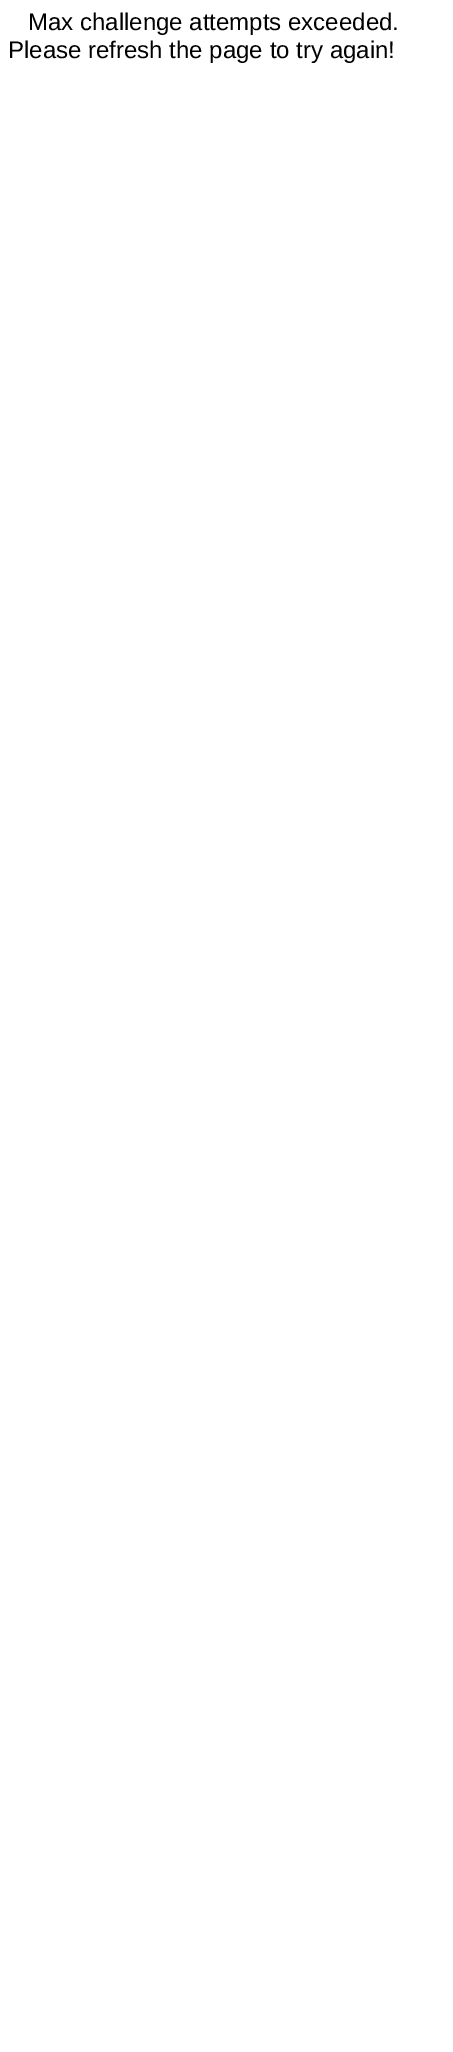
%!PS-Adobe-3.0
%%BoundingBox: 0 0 453 2052
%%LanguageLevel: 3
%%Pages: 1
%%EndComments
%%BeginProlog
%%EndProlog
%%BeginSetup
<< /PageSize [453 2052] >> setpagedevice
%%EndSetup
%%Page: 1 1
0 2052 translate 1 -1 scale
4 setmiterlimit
1 setgray
0 0 453 2052 rectfill
/LiberationSans-Regular [24 0 0 -24 0 0] selectfont
0 setgray
28 30 moveto (Max challenge attempts exceeded.) show
8 58 moveto (Please refresh the page to try again!) show
showpage
%%EOF
